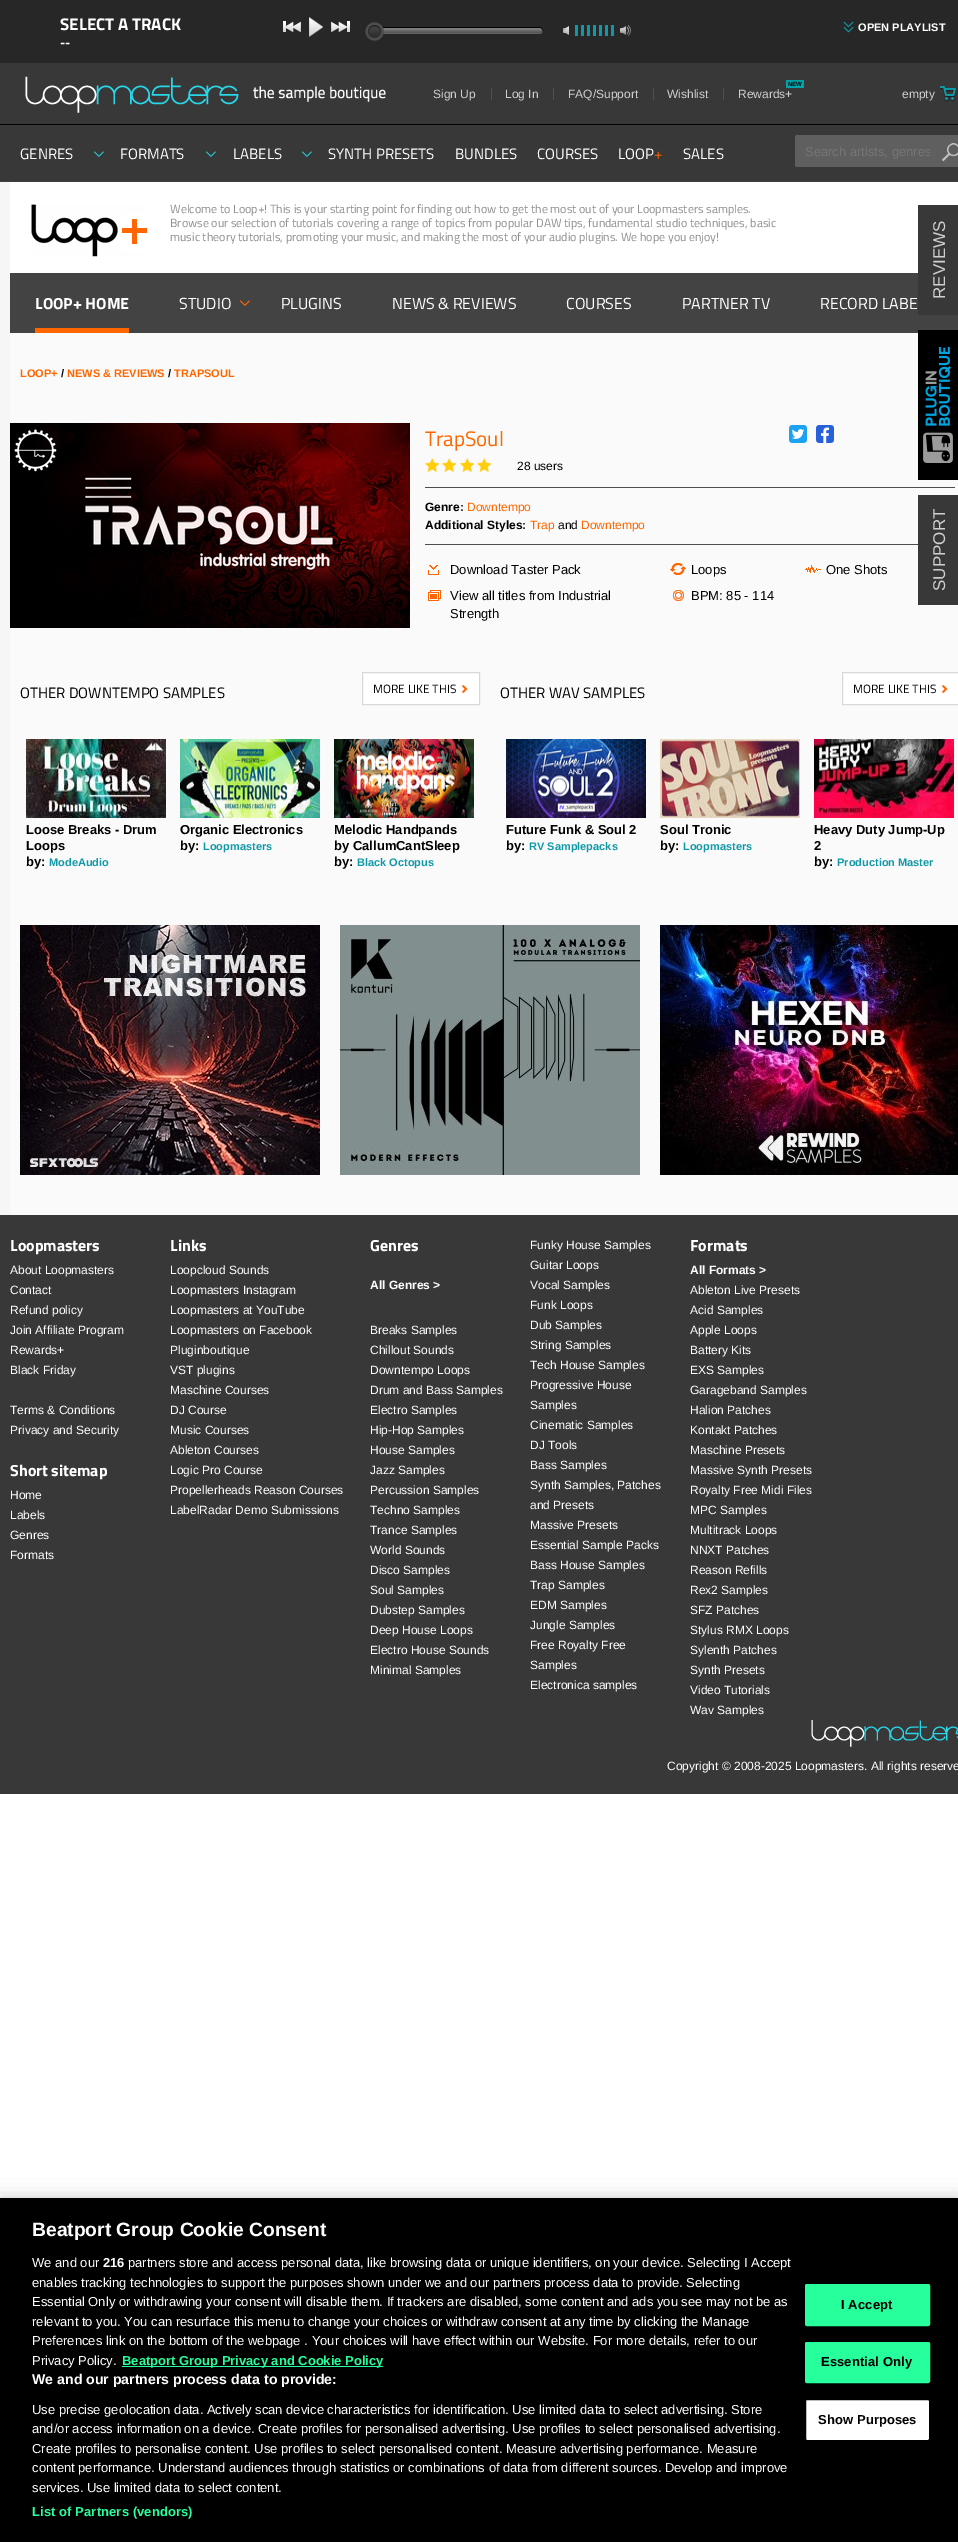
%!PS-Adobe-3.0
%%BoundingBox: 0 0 958 2542
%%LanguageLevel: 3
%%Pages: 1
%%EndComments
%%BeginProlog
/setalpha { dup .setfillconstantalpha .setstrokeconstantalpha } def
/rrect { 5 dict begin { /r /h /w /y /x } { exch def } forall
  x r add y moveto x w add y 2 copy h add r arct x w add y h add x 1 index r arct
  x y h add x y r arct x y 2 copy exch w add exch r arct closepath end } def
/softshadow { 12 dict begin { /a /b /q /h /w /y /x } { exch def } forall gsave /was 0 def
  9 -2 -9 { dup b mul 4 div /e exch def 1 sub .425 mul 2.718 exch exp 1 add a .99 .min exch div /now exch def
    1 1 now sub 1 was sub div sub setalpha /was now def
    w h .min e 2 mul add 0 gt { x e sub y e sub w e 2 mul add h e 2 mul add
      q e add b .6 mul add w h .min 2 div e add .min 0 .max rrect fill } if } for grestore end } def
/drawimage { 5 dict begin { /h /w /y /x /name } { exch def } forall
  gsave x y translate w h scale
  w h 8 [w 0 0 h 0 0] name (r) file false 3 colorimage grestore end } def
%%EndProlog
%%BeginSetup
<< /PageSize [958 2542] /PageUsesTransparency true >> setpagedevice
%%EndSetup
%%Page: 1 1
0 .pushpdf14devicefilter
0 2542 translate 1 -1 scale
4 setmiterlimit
1 setgray
0 0 958 2542 rectfill
0.153 setgray
0 0 958 63 rectfill
(images/1.raw) 283 21 18 12 drawimage
(images/2.raw) 309 17 14 20 drawimage
(images/3.raw) 331 21 19 12 drawimage
(images/4.raw) 382 27 161 7 drawimage
(images/5.raw) 365 22 19 19 drawimage
(images/6.raw) 563 25 68 11 drawimage
(images/7.raw) 575 25 39 11 drawimage
(images/8.raw) 843 21 11 12 drawimage
0.965 setgray
0 182 10 1033 rectfill
0.22 setgray
0 63 958 61 rectfill
(images/9.raw) 0 124 958 58 drawimage
(images/10.raw) 25 76 361 37 drawimage
0.314 setgray
491 88 1 12 rectfill
553 88 1 12 rectfill
653 88 1 12 rectfill
723 88 1 12 rectfill
0 0.643 0.671 setrgbcolor
786 80 18 8 rectfill
(images/11.raw) 939 86 18 16 drawimage
(images/12.raw) 94 151 10 6 drawimage
(images/12.raw) 206 151 10 6 drawimage
(images/12.raw) 302 151 10 6 drawimage
0.373 setgray
newpath 797 135 moveto 940 135 lineto 940 167 lineto 797 167 lineto 796 167 795 166 795 165 curveto 795 137 lineto 795 136 796 135 797 135 curveto closepath fill
940 135 18 32 rectfill
(images/13.raw) 942 143 16 19 drawimage
0.98 setgray
10 333 948 882 rectfill
(images/14.raw) 31 204 116 53 drawimage
0.263 setgray
10 273 948 60 rectfill
1 0.4 0 setrgbcolor
35 328 94 5 rectfill
(images/15.raw) 240 300 10 6 drawimage
(images/16.raw) 10 423 400 205 drawimage
(images/17.raw) 789 425 18 18 drawimage
(images/18.raw) 816 425 18 18 drawimage
0.298 setgray
425 487 530 1 rectfill
(images/19.raw) 425 458 14 14 drawimage
(images/19.raw) 442 458 14 14 drawimage
(images/19.raw) 460 458 14 14 drawimage
(images/19.raw) 477 458 14 14 drawimage
425 544 493 1 rectfill
(images/20.raw) 428 565 11 10 drawimage
(images/21.raw) 428 590 13 11 drawimage
(images/22.raw) 670 563 16 12 drawimage
(images/23.raw) 805 565 16 8 drawimage
(images/24.raw) 673 590 11 11 drawimage
1 setgray
newpath 362.5 672.5 moveto 479.5 672.5 lineto 479.5 704.5 lineto 362.5 704.5 lineto closepath gsave fill grestore
0.847 setgray
stroke
(images/25.raw) 462 685 6 8 drawimage
(images/26.raw) 26 739 140 79 drawimage
(images/27.raw) 180 739 140 79 drawimage
(images/28.raw) 334 739 140 79 drawimage
1 setgray
newpath 842.5 672.5 moveto 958.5 672.5 lineto 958.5 704.5 lineto 842.5 704.5 lineto closepath gsave fill grestore
0.847 setgray
stroke
(images/25.raw) 942 685 6 8 drawimage
(images/29.raw) 506 739 140 79 drawimage
(images/30.raw) 660 739 140 79 drawimage
(images/31.raw) 814 739 140 79 drawimage
(images/32.raw) 20 925 300 250 drawimage
(images/33.raw) 340 925 300 250 drawimage
(images/34.raw) 660 925 298 250 drawimage
0.22 setgray
918 205 40 110 rectfill
0 setgray
918 330 40 150 rectfill
(images/35.raw) 923 347 30 116 drawimage
0.22 setgray
918 495 40 110 rectfill
0 1215 958 579 rectfill
(images/36.raw) 811 1720 147 27 drawimage
0 setgray
0 2198 958 344 0 9 0.2 softshadow
0 2198 958 344 rectfill
0.153 1 0.612 setrgbcolor
122 2366 261 1 rectfill
805.5 2284.5 124 41 1.5 rrect gsave fill grestore
stroke
805.5 2342.5 124 40 1.5 rrect gsave fill grestore
stroke
1 setgray
805.5 2399.5 124 41 1.5 rrect gsave fill grestore
0 setgray
stroke
/TitilliumWeb-Bold [17 0 0 -17 0 0] selectfont
1 setgray
60 30 moveto (SELECT A TRACK) show
/TitilliumWeb-Bold [13 0 0 -13 0 0] selectfont
60 47 moveto (--) show
/LiberationSans-Bold [11 0 0 -11 0 0] selectfont
858 31 moveto (OPEN PLAYLIST) show
/LiberationSans-Regular [12 0 0 -12 0 0] selectfont
0.812 setgray
433 98 moveto (Sign Up) show
505 98 moveto (Log In) show
568 98 moveto (FAQ/Support) show
667 98 moveto (Wishlist) show
/LiberationSans-Bold [6 0 0 -6 0 0] selectfont
0 setgray
788 86 moveto (NEW) show
/LiberationSans-Regular [12 0 0 -12 0 0] selectfont
0.812 setgray
738 98 moveto (Rewards+) show
902 98 moveto (empty) show
/TitilliumWeb-Regular [15 0 0 -15 0 0] selectfont
1 setgray
20 159 moveto (GENRES) show
120 159 moveto (FORMATS) show
233 159 moveto (LABELS) show
328 159 moveto (SYNTH PRESETS) show
455 159 moveto (BUNDLES) show
537 159 moveto (COURSES) show
618 159 moveto (LOOP) show
1 0.4 0 setrgbcolor
654 159 moveto (+) show
1 setgray
683 159 moveto (SALES) show
gsave
805 144 125 15 rectclip
/LiberationSans-Regular [13 0 0 -13 0 0] selectfont
0.459 setgray
805 156 moveto (Search artists, genres) show
grestore
/TitilliumWeb-Regular [12 0 0 -12 0 0] selectfont
0.561 setgray
170 213 moveto (Welcome to Loop+! This is your starting point for finding out how to get the most out of your Loopmasters samples.) show
170 227 moveto (Browse our selection of tutorials covering a range of topics from popular DAW tips, fundamental studio techniques, basic) show
170 241 moveto (music theory tutorials, promoting your music, and making the most of your audio plugins. We hope you enjoy!) show
/TitilliumWeb-Bold [16 0 0 -16 0 0] selectfont
1 setgray
35 309 moveto (LOOP+ HOME) show
/TitilliumWeb-Regular [16 0 0 -16 0 0] selectfont
179 309 moveto (STUDIO) show
281 309 moveto (PLUGINS) show
392 309 moveto (NEWS & REVIEWS) show
566 309 moveto (COURSES) show
682 309 moveto (PARTNER TV) show
820 309 moveto (RECORD LABE) show
/LiberationSans-Bold [11 0 0 -11 0 0] selectfont
1 0.4 0 setrgbcolor
20 377 moveto (LOOP+) show
0 setgray
61 377 moveto (/) show
1 0.4 0 setrgbcolor
67 377 moveto (NEWS & REVIEWS) show
0 setgray
168 377 moveto (/) show
1 0.4 0 setrgbcolor
174 377 moveto (TRAPSOUL) show
/TitilliumWeb-Regular [21 0 0 -21 0 0] selectfont
425 446 moveto (TrapSoul) show
/LiberationSans-Regular [12 0 0 -12 0 0] selectfont
0 setgray
517 470 moveto (28 users) show
/LiberationSans-Bold [12 0 0 -12 0 0] selectfont
425 511 moveto (Genre:) show
/LiberationSans-Regular [12 0 0 -12 0 0] selectfont
1 0.4 0 setrgbcolor
467 511 moveto (Downtempo) show
/LiberationSans-Bold [12 0 0 -12 0 0] selectfont
0 setgray
425 529 moveto (Additional Styles:) show
/LiberationSans-Regular [12 0 0 -12 0 0] selectfont
1 0.4 0 setrgbcolor
530 529 moveto (Trap) show
0 setgray
558 529 moveto (and) show
1 0.4 0 setrgbcolor
581 529 moveto (Downtempo) show
/LiberationSans-Regular [13 0 0 -13 0 0] selectfont
0 setgray
450 574 moveto (Download Taster Pack) show
450 600 moveto (View all titles from Industrial) show
450 618 moveto (Strength) show
691 574 moveto (Loops) show
826 574 moveto (One Shots) show
691 600 moveto (BPM: 85 - 114) show
/TitilliumWeb-Regular [15 0 0 -15 0 0] selectfont
20 698 moveto (OTHER DOWNTEMPO SAMPLES) show
/TitilliumWeb-Regular [12 0 0 -12 0 0] selectfont
373 693 moveto (MORE LIKE THIS) show
/LiberationSans-Bold [13 0 0 -13 0 0] selectfont
26 834 moveto (Loose Breaks - Drum) show
26 850 moveto (Loops) show
26 866 moveto (by:) show
/LiberationSans-Bold [11 0 0 -11 0 0] selectfont
0.063 0.6 0.651 setrgbcolor
49 866 moveto (ModeAudio) show
/LiberationSans-Bold [13 0 0 -13 0 0] selectfont
0 setgray
180 834 moveto (Organic Electronics) show
180 850 moveto (by:) show
/LiberationSans-Bold [11 0 0 -11 0 0] selectfont
0.063 0.6 0.651 setrgbcolor
203 850 moveto (Loopmasters) show
/LiberationSans-Bold [13 0 0 -13 0 0] selectfont
0 setgray
334 834 moveto (Melodic Handpands) show
334 850 moveto (by CallumCantSleep) show
334 866 moveto (by:) show
/LiberationSans-Bold [11 0 0 -11 0 0] selectfont
0.063 0.6 0.651 setrgbcolor
357 866 moveto (Black Octopus) show
/TitilliumWeb-Regular [15 0 0 -15 0 0] selectfont
0 setgray
500 698 moveto (OTHER WAV SAMPLES) show
/TitilliumWeb-Regular [12 0 0 -12 0 0] selectfont
853 693 moveto (MORE LIKE THIS) show
/LiberationSans-Bold [13 0 0 -13 0 0] selectfont
506 834 moveto (Future Funk & Soul 2) show
506 850 moveto (by:) show
/LiberationSans-Bold [11 0 0 -11 0 0] selectfont
0.063 0.6 0.651 setrgbcolor
529 850 moveto (RV Samplepacks) show
/LiberationSans-Bold [13 0 0 -13 0 0] selectfont
0 setgray
660 834 moveto (Soul Tronic) show
660 850 moveto (by:) show
/LiberationSans-Bold [11 0 0 -11 0 0] selectfont
0.063 0.6 0.651 setrgbcolor
683 850 moveto (Loopmasters) show
/LiberationSans-Bold [13 0 0 -13 0 0] selectfont
0 setgray
814 834 moveto (Heavy Duty Jump-Up) show
814 850 moveto (2) show
814 866 moveto (by:) show
/LiberationSans-Bold [11 0 0 -11 0 0] selectfont
0.063 0.6 0.651 setrgbcolor
837 866 moveto (Production Master) show
/LiberationSans-Regular [17 0 0 -17 0 0] selectfont
0.812 setgray
gsave 945 299 translate -90 rotate 0 0 moveto (REVIEWS) show grestore
gsave 945 591 translate -90 rotate 0 0 moveto (SUPPORT) show grestore
/TitilliumWeb-Bold [16 0 0 -16 0 0] selectfont
1 setgray
10 1251 moveto (Loopmasters) show
/LiberationSans-Regular [12 0 0 -12 0 0] selectfont
10 1274 moveto (About Loopmasters) show
10 1294 moveto (Contact) show
10 1314 moveto (Refund policy) show
10 1334 moveto (Join Affiliate Program) show
10 1354 moveto (Rewards+) show
10 1374 moveto (Black Friday) show
10 1414 moveto (Terms & Conditions) show
10 1434 moveto (Privacy and Security) show
/TitilliumWeb-Bold [16 0 0 -16 0 0] selectfont
10 1476 moveto (Short sitemap) show
/LiberationSans-Regular [12 0 0 -12 0 0] selectfont
10 1499 moveto (Home) show
10 1519 moveto (Labels) show
10 1539 moveto (Genres) show
10 1559 moveto (Formats) show
/TitilliumWeb-Bold [16 0 0 -16 0 0] selectfont
170 1251 moveto (Links) show
/LiberationSans-Regular [12 0 0 -12 0 0] selectfont
170 1274 moveto (Loopcloud Sounds) show
170 1294 moveto (Loopmasters Instagram) show
170 1314 moveto (Loopmasters at YouTube) show
170 1334 moveto (Loopmasters on Facebook) show
170 1354 moveto (Pluginboutique) show
170 1374 moveto (VST plugins) show
170 1394 moveto (Maschine Courses) show
170 1414 moveto (DJ Course) show
170 1434 moveto (Music Courses) show
170 1454 moveto (Ableton Courses) show
170 1474 moveto (Logic Pro Course) show
170 1494 moveto (Propellerheads Reason Courses) show
170 1514 moveto (LabelRadar Demo Submissions) show
/TitilliumWeb-Bold [16 0 0 -16 0 0] selectfont
370 1251 moveto (Genres) show
/LiberationSans-Regular [12 0 0 -12 0 0] selectfont
530 1249 moveto (Funky House Samples) show
530 1269 moveto (Guitar Loops) show
/LiberationSans-Bold [12 0 0 -12 0 0] selectfont
370 1289 moveto (All Genres >) show
/LiberationSans-Regular [12 0 0 -12 0 0] selectfont
530 1289 moveto (Vocal Samples) show
530 1309 moveto (Funk Loops) show
370 1334 moveto (Breaks Samples) show
530 1329 moveto (Dub Samples) show
370 1354 moveto (Chillout Sounds) show
530 1349 moveto (String Samples) show
370 1374 moveto (Downtempo Loops) show
530 1369 moveto (Tech House Samples) show
370 1394 moveto (Drum and Bass Samples) show
530 1389 moveto (Progressive House) show
530 1409 moveto (Samples) show
370 1414 moveto (Electro Samples) show
370 1434 moveto (Hip-Hop Samples) show
530 1429 moveto (Cinematic Samples) show
370 1454 moveto (House Samples) show
530 1449 moveto (DJ Tools) show
370 1474 moveto (Jazz Samples) show
530 1469 moveto (Bass Samples) show
370 1494 moveto (Percussion Samples) show
530 1489 moveto (Synth Samples, Patches) show
530 1509 moveto (and Presets) show
370 1514 moveto (Techno Samples) show
370 1534 moveto (Trance Samples) show
530 1529 moveto (Massive Presets) show
370 1554 moveto (World Sounds) show
530 1549 moveto (Essential Sample Packs) show
370 1574 moveto (Disco Samples) show
530 1569 moveto (Bass House Samples) show
370 1594 moveto (Soul Samples) show
530 1589 moveto (Trap Samples) show
370 1614 moveto (Dubstep Samples) show
530 1609 moveto (EDM Samples) show
370 1634 moveto (Deep House Loops) show
530 1629 moveto (Jungle Samples) show
370 1654 moveto (Electro House Sounds) show
530 1649 moveto (Free Royalty Free) show
530 1669 moveto (Samples) show
370 1674 moveto (Minimal Samples) show
530 1689 moveto (Electronica samples) show
/TitilliumWeb-Bold [16 0 0 -16 0 0] selectfont
690 1251 moveto (Formats) show
/LiberationSans-Bold [12 0 0 -12 0 0] selectfont
690 1274 moveto (All Formats >) show
/LiberationSans-Regular [12 0 0 -12 0 0] selectfont
690 1294 moveto (Ableton Live Presets) show
690 1314 moveto (Acid Samples) show
690 1334 moveto (Apple Loops) show
690 1354 moveto (Battery Kits) show
690 1374 moveto (EXS Samples) show
690 1394 moveto (Garageband Samples) show
690 1414 moveto (Halion Patches) show
690 1434 moveto (Kontakt Patches) show
690 1454 moveto (Maschine Presets) show
690 1474 moveto (Massive Synth Presets) show
690 1494 moveto (Royalty Free Midi Files) show
690 1514 moveto (MPC Samples) show
690 1534 moveto (Multitrack Loops) show
690 1554 moveto (NNXT Patches) show
690 1574 moveto (Reason Refills) show
690 1594 moveto (Rex2 Samples) show
690 1614 moveto (SFZ Patches) show
690 1634 moveto (Stylus RMX Loops) show
690 1654 moveto (Sylenth Patches) show
690 1674 moveto (Synth Presets) show
690 1694 moveto (Video Tutorials) show
690 1714 moveto (Wav Samples) show
667 1770 moveto (Copyright © 2008-2025 Loopmasters. All rights reserve) show
/LiberationSans-Bold [19.25 0 0 -19.25 0 0] selectfont
32 2236 moveto (Beatport Group Cookie Consent) show
/LiberationSans-Regular [13 0 0 -13 0 0] selectfont
32 2267 moveto (We and our) show
/LiberationSans-Bold [13 0 0 -13 0 0] selectfont
103 2267 moveto (216) show
/LiberationSans-Regular [13 0 0 -13 0 0] selectfont
128 2267 moveto (partners store and access personal data, like browsing data or unique identifiers, on your device. Selecting I Accept) show
32 2287 moveto (enables tracking technologies to support the purposes shown under we and our partners process data to provide. Selecting) show
32 2306 moveto (Essential Only or withdrawing your consent will disable them. If trackers are disabled, some content and ads you see may not be as) show
32 2326 moveto (relevant to you. You can resurface this menu to change your choices or withdraw consent at any time by clicking the Manage) show
32 2345 moveto (Preferences link on the bottom of the webpage . Your choices will have effect within our Website. For more details, refer to our) show
32 2365 moveto (Privacy Policy.) show
/LiberationSans-Bold [13 0 0 -13 0 0] selectfont
0.153 1 0.612 setrgbcolor
122 2365 moveto (Beatport Group Privacy and Cookie Policy) show
/LiberationSans-Bold [14.1 0 0 -14.1 0 0] selectfont
1 setgray
32 2384 moveto (We and our partners process data to provide:) show
/LiberationSans-Regular [13 0 0 -13 0 0] selectfont
32 2414 moveto (Use precise geolocation data. Actively scan device characteristics for identification. Use limited data to select advertising. Store) show
32 2433 moveto (and/or access information on a device. Create profiles for personalised advertising. Use profiles to select personalised advertising.) show
32 2453 moveto (Create profiles to personalise content. Use profiles to select personalised content. Measure advertising performance. Measure) show
32 2472 moveto (content performance. Understand audiences through statistics or combinations of data from different sources. Develop and improve) show
32 2492 moveto (services. Use limited data to select content.) show
/LiberationSans-Bold [13 0 0 -13 0 0] selectfont
0.153 1 0.612 setrgbcolor
32 2516 moveto 0.1 0 (List of Partners \(vendors\)) ashow
0 setgray
841 2309 moveto 0.1 0 (I Accept) ashow
821 2366 moveto 0.1 0 (Essential Only) ashow
818 2424 moveto 0.1 0 (Show Purposes) ashow
.poppdf14devicefilter showpage
%%EOF
